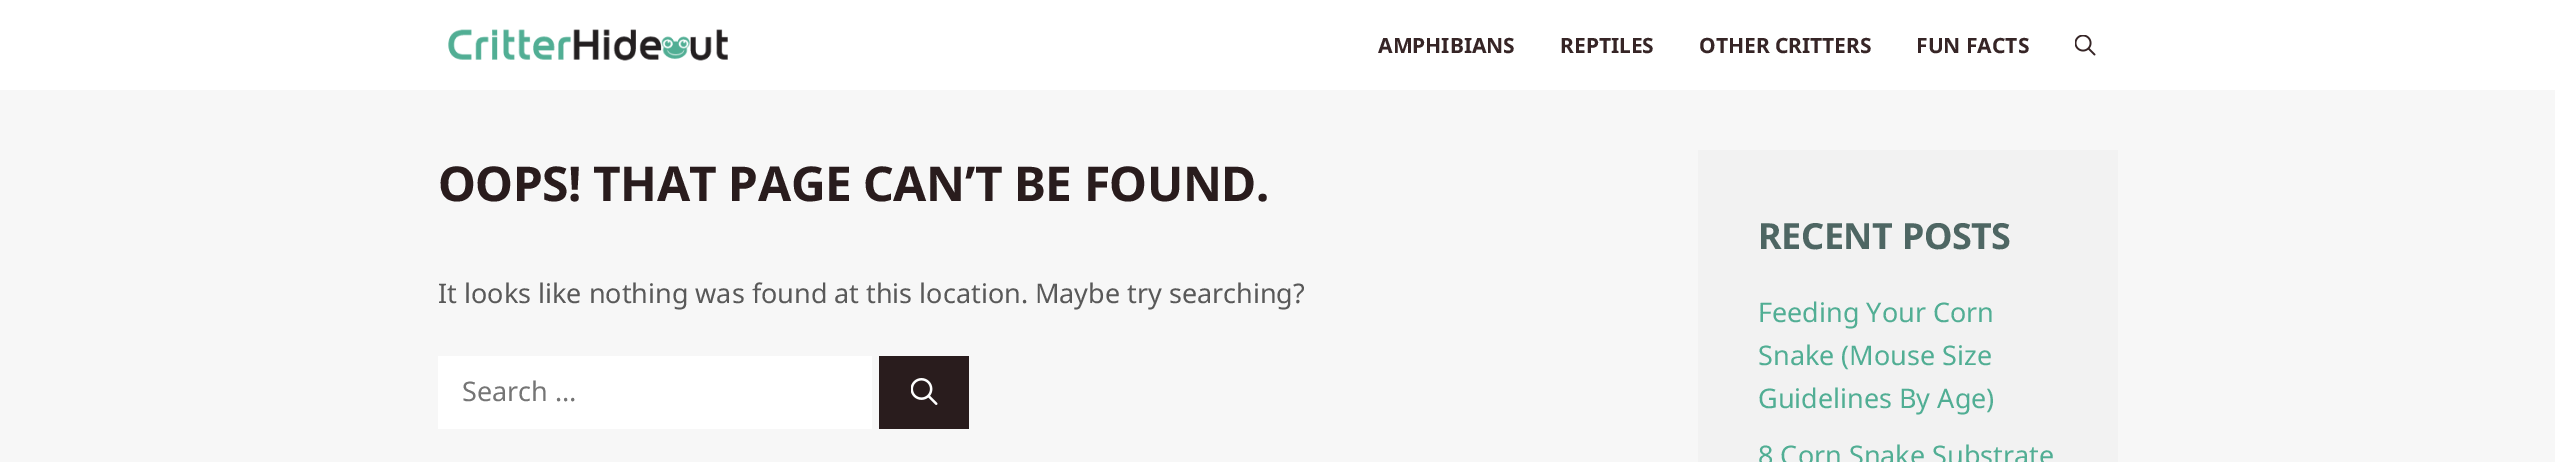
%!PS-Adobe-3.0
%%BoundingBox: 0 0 2555 462
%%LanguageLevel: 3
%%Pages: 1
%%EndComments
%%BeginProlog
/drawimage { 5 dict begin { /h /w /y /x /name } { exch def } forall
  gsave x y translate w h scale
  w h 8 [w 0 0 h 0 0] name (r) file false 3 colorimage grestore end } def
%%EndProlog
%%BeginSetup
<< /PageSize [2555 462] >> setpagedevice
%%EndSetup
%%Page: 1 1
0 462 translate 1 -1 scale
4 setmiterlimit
0.969 setgray
0 0 2555 462 rectfill
1 setgray
0 0 2555 90 rectfill
(images/1.raw) 448 29 280 32 drawimage
(images/2.raw) 2075 35 21 21 drawimage
438 356 434 73 rectfill
0.161 0.11 0.114 setrgbcolor
879 356 90 73 rectfill
(images/3.raw) 911 378 27 27 drawimage
0.949 setgray
1698 150 420 312 rectfill
/NotoSans-Bold [21 0 0 -21 0 0] selectfont
0.212 0.145 0.149 setrgbcolor
1378 53 moveto (AMPHIBIANS) show
1560 53 moveto (REPTILES) show
1699 53 moveto (OTHER CRITTERS) show
1916 53 moveto (FUN FACTS) show
/NotoSans-Bold [48 0 0 -48 0 0] selectfont
0.161 0.11 0.114 setrgbcolor
438 201 moveto -0.5 0 (OOPS! THAT PAGE CAN’T BE FOUND.) ashow
/NotoSans-Regular [27 0 0 -27 0 0] selectfont
0.349 setgray
438 303 moveto (It looks like nothing was found at this location. Maybe try searching?) show
0.459 setgray
462 401 moveto (Search …) show
/NotoSans-Bold [36 0 0 -36 0 0] selectfont
0.306 0.4 0.388 setrgbcolor
1758 249 moveto -0.4 0 (RECENT POSTS) ashow
/NotoSans-Regular [27 0 0 -27 0 0] selectfont
0.318 0.682 0.58 setrgbcolor
1758 322 moveto (Feeding Your Corn) show
1758 365 moveto (Snake \(Mouse Size) show
1758 408 moveto (Guidelines By Age\)) show
1758 465 moveto (8 Corn Snake Substrate) show
showpage
%%EOF
